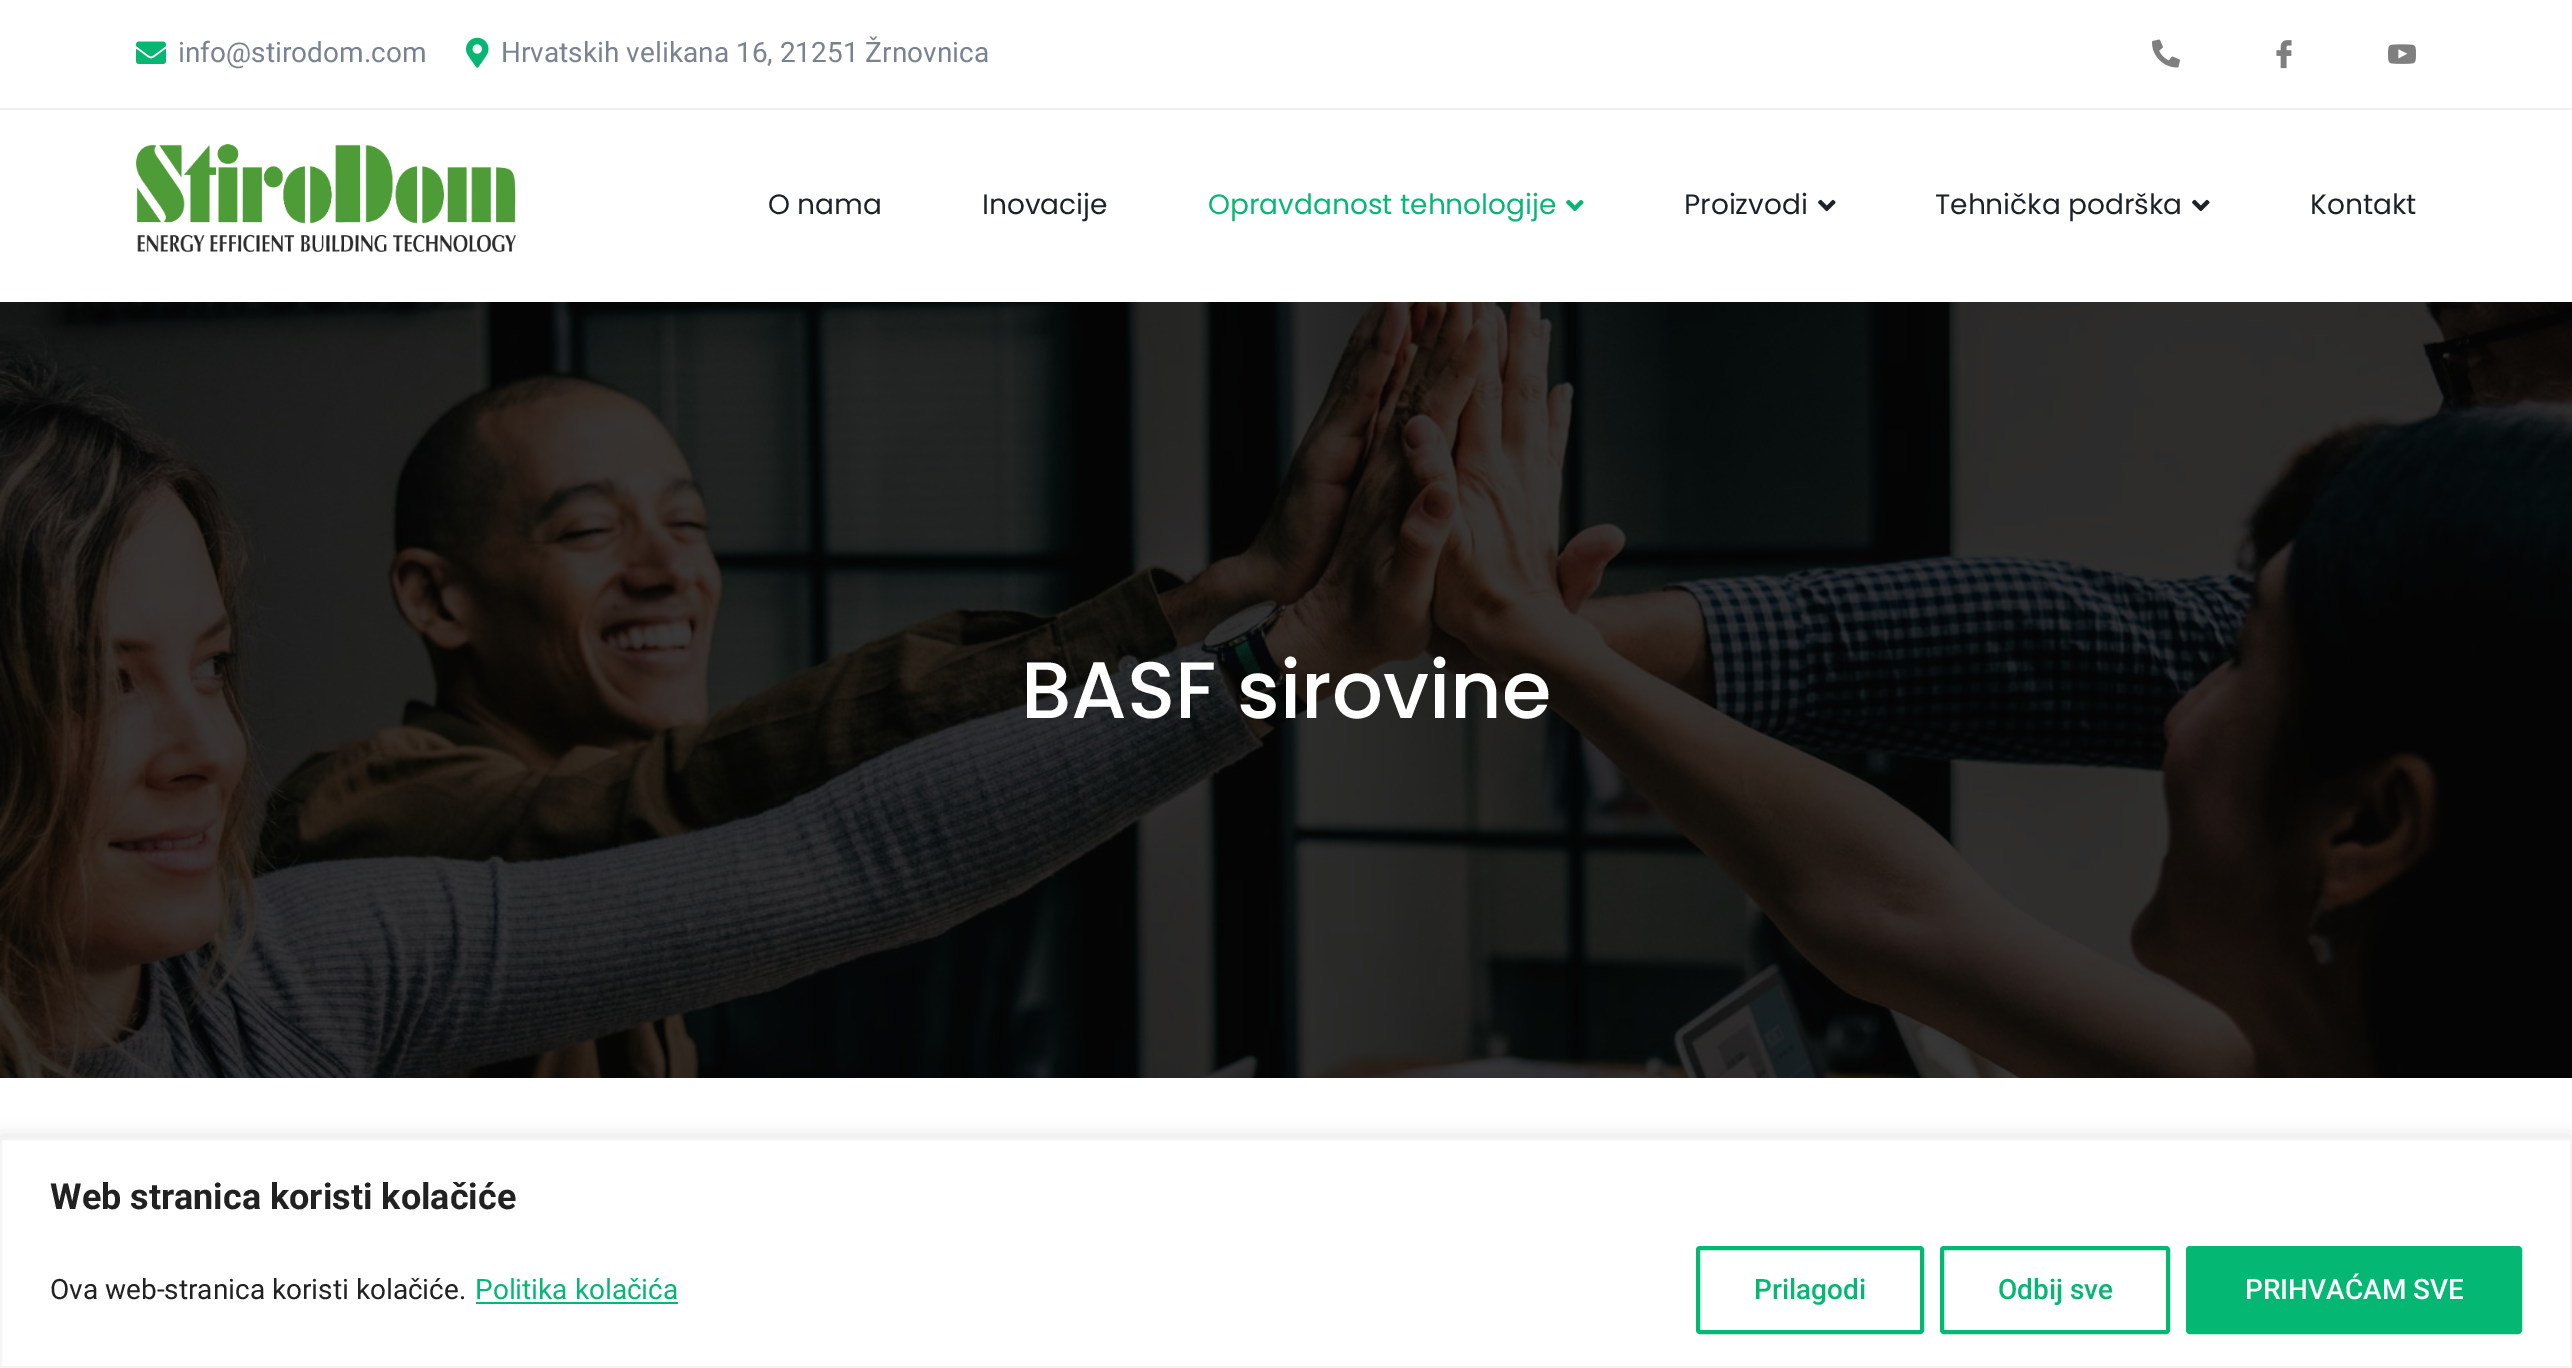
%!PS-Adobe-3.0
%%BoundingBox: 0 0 2572 1368
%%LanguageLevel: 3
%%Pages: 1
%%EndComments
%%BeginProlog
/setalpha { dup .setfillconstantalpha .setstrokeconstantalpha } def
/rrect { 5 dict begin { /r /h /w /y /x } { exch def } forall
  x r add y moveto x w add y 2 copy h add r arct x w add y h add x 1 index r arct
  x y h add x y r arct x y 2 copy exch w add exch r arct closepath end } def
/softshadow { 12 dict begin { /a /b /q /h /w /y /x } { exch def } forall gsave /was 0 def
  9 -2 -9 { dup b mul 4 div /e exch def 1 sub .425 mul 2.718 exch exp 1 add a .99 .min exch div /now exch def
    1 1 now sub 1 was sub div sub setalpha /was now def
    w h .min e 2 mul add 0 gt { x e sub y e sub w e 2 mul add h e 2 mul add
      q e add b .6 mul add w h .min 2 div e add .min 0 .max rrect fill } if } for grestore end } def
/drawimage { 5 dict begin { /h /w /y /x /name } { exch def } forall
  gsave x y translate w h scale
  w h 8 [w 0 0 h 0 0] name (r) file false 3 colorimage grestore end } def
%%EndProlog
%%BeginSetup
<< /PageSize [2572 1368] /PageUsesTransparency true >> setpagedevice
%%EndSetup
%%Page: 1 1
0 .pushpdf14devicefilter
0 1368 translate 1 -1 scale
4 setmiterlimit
1 setgray
0 0 2572 1368 rectfill
(images/1.raw) 136 41 30 23 drawimage
(images/2.raw) 466 37 23 31 drawimage
(images/3.raw) 2152 39 28 29 drawimage
(images/4.raw) 2276 40 16 29 drawimage
(images/5.raw) 2388 44 28 20 drawimage
0.933 0.941 0.953 setrgbcolor
0 108 2572 2 rectfill
(images/6.raw) 136 144 380 108 drawimage
(images/7.raw) 1566 199 18 13 drawimage
(images/8.raw) 1818 199 18 13 drawimage
(images/8.raw) 2192 199 18 13 drawimage
(images/9.raw) 0 302 2572 776 drawimage
0.675 0.671 0.671 setrgbcolor
0 1136 2572 230 0 10 0.3 softshadow
1 setgray
newpath 1 1139 moveto 2571 1139 lineto 2571 1367 lineto 1 1367 lineto closepath gsave fill grestore
0.957 setgray
2 setlinewidth
stroke
0.016 0.718 0.447 setrgbcolor
476 1302 202 2 rectfill
4 setlinewidth
1698 1248 224 84 2 rrect stroke
1942 1248 226 84 2 rrect stroke
2188 1248 332 84 2 rrect gsave fill grestore
stroke
/Heebo-Regular [28 0 0 -28 0 0] selectfont
0.475 0.51 0.565 setrgbcolor
178 62 moveto (info@stirodom.com) show
501 62 moveto (Hrvatskih velikana 16, 21251 Žrnovnica) show
/Poppins-Regular [28 0 0 -28 0 0] selectfont
0.114 0.133 0.165 setrgbcolor
768 214 moveto (O nama) show
982 214 moveto (Inovacije) show
0.02 0.718 0.447 setrgbcolor
1208 214 moveto (Opravdanost tehnologije) show
0.114 0.133 0.165 setrgbcolor
1684 214 moveto (Proizvodi) show
1935 214 moveto (Tehnička podrška) show
2310 214 moveto (Kontakt) show
/Poppins-Medium [80 0 0 -80 0 0] selectfont
1 setgray
1021 718 moveto (BASF sirovine) show
/Roboto-Bold [36 0 0 -36 0 0] selectfont
0.129 setgray
50 1209 moveto (Web stranica koristi kolačiće) show
/Roboto-Regular [28 0 0 -28 0 0] selectfont
50 1299 moveto (Ova web-stranica koristi kolačiće.) show
0.02 0.718 0.447 setrgbcolor
475 1299 moveto (Politika kolačića) show
/Roboto-Medium [28 0 0 -28 0 0] selectfont
1754 1299 moveto (Prilagodi) show
1998 1299 moveto (Odbij sve) show
1 setgray
2245 1299 moveto (PRIHVAĆAM SVE) show
.poppdf14devicefilter showpage
%%EOF
